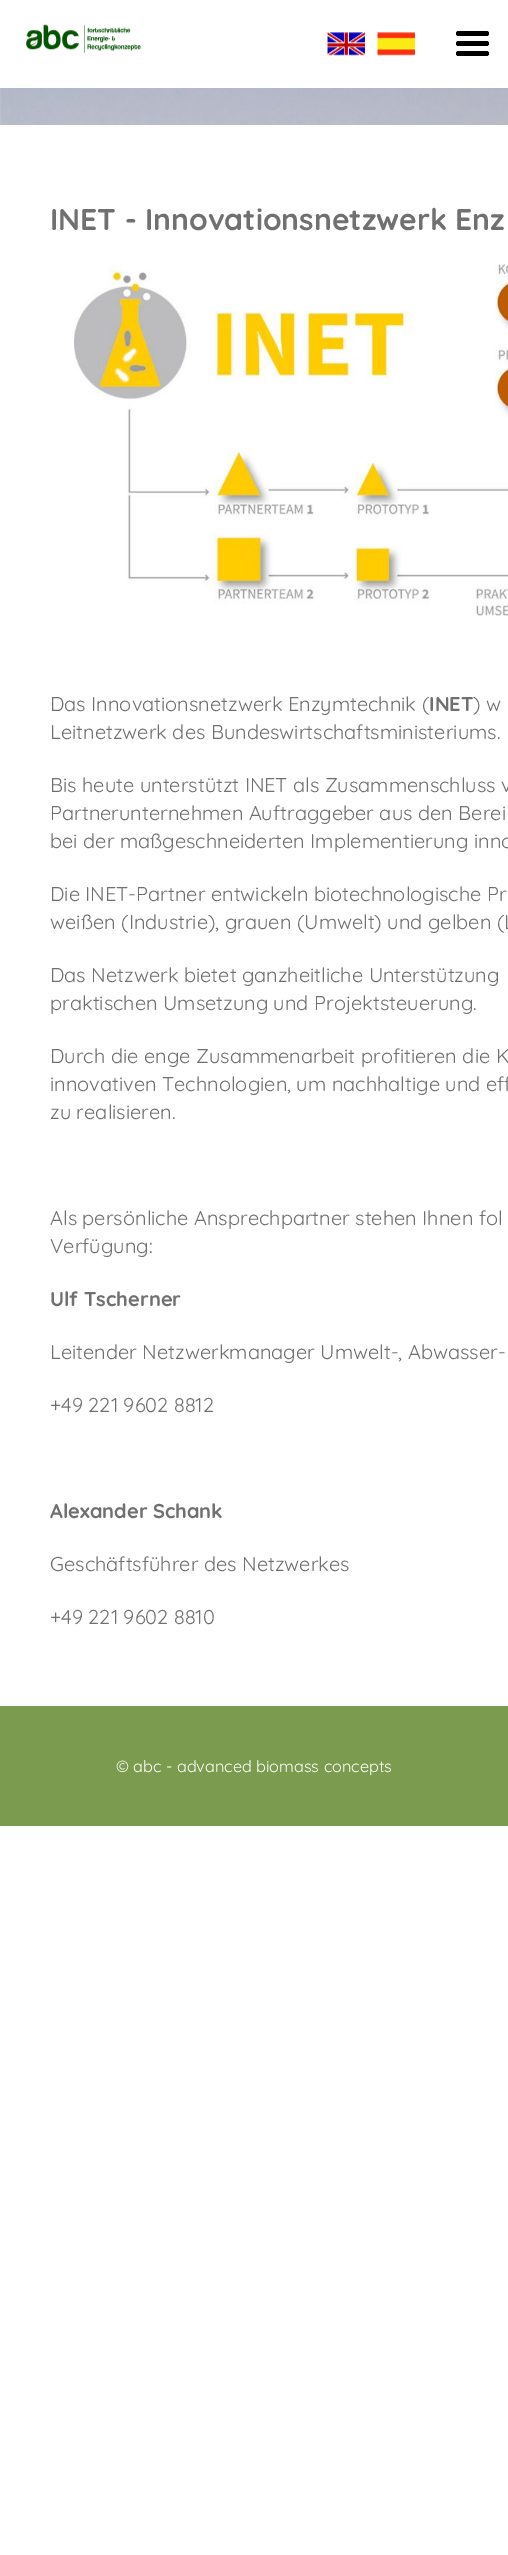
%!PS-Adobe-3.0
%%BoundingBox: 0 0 508 2555
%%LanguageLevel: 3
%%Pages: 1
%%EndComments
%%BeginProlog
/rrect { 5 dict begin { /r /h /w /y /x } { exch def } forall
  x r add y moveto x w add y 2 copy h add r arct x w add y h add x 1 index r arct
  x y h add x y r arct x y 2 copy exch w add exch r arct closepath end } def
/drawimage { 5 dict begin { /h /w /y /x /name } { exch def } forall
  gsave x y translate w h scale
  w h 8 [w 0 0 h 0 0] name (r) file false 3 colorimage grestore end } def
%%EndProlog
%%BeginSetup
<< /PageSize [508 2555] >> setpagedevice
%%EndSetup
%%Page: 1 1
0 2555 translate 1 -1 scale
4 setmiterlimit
1 setgray
0 0 508 2555 rectfill
(images/1.raw) 0 88 508 37 drawimage
(images/2.raw) 26 24 115 30 drawimage
0 setgray
456 31 33 5 2.5 rrect fill
456 41 33 5 2.5 rrect fill
456 51 33 5 2.5 rrect fill
(images/3.raw) 327 32 38 24 drawimage
(images/4.raw) 377 32 38 24 drawimage
(images/5.raw) 74 264 434 352 drawimage
0.482 0.612 0.31 setrgbcolor
0 1706 508 120 rectfill
/Quicksand-Light [30 0 0 -30 0 0] selectfont
0.439 setgray
50 230 moveto (INET - Innovationsnetzwerk Enz) show
/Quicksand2-Light [20 0 0 -20 0 0] selectfont
50 711 moveto (Das Innovationsnetzwerk Enzymtechnik \() show
/Quicksand-Light [20 0 0 -20 0 0] selectfont
429 711 moveto (INET) show
/Quicksand2-Light [20 0 0 -20 0 0] selectfont
473 711 moveto (\) w) show
50 739 moveto (Leitnetzwerk des Bundeswirtschaftsministeriums.) show
50 792 moveto (Bis heute unterstützt INET als Zusammenschluss v) show
50 820 moveto (Partnerunternehmen Auftraggeber aus den Berei) show
50 848 moveto (bei der maßgeschneiderten Implementierung inno) show
50 901 moveto (Die INET-Partner entwickeln biotechnologische Pr) show
50 929 moveto (weißen \(Industrie\), grauen \(Umwelt\) und gelben \(L) show
50 982 moveto (Das Netzwerk bietet ganzheitliche Unterstützung) show
50 1010 moveto (praktischen Umsetzung und Projektsteuerung.) show
50 1063 moveto (Durch die enge Zusammenarbeit profitieren die K) show
50 1091 moveto (innovativen Technologien, um nachhaltige und eff) show
50 1119 moveto (zu realisieren.) show
50 1225 moveto (Als persönliche Ansprechpartner stehen Ihnen fol) show
50 1253 moveto (Verfügung:) show
/Quicksand-Light [20 0 0 -20 0 0] selectfont
50 1306 moveto (Ulf Tscherner) show
/Quicksand2-Light [20 0 0 -20 0 0] selectfont
50 1359 moveto (Leitender Netzwerkmanager Umwelt-, Abwasser-) show
50 1412 moveto (+49 221 9602 8812) show
/Quicksand-Light [20 0 0 -20 0 0] selectfont
50 1518 moveto (Alexander Schank) show
/Quicksand2-Light [20 0 0 -20 0 0] selectfont
50 1571 moveto (Geschäftsführer des Netzwerkes) show
50 1624 moveto (+49 221 9602 8810) show
/Quicksand2-Light [16.25 0 0 -16.25 0 0] selectfont
1 setgray
116 1772 moveto (© abc - advanced biomass concepts) show
showpage
%%EOF
